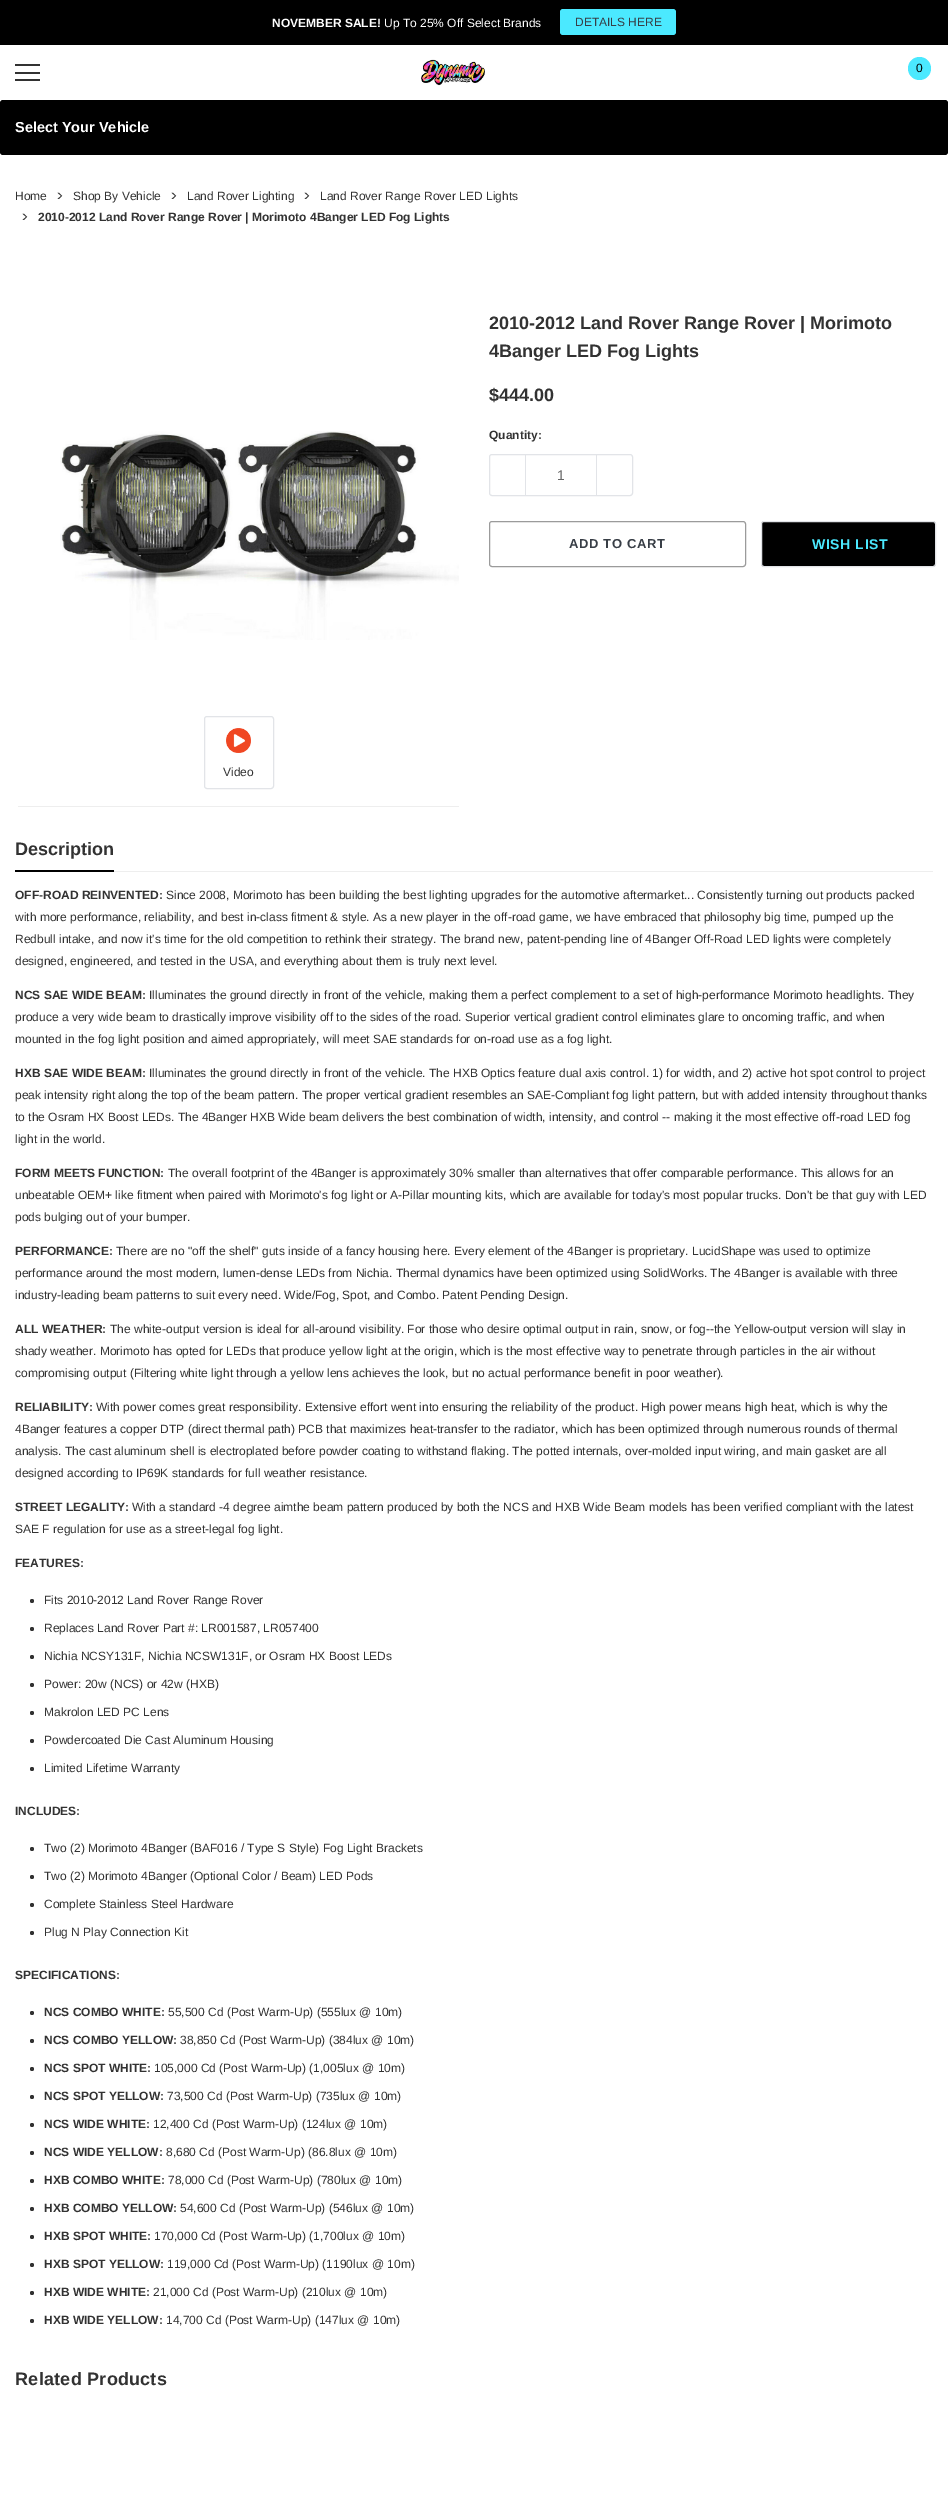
%!PS-Adobe-3.0
%%BoundingBox: 0 0 948 2516
%%LanguageLevel: 3
%%Pages: 1
%%EndComments
%%BeginProlog
/rrect { 5 dict begin { /r /h /w /y /x } { exch def } forall
  x r add y moveto x w add y 2 copy h add r arct x w add y h add x 1 index r arct
  x y h add x y r arct x y 2 copy exch w add exch r arct closepath end } def
/drawimage { 5 dict begin { /h /w /y /x /name } { exch def } forall
  gsave x y translate w h scale
  w h 8 [w 0 0 h 0 0] name (r) file false 3 colorimage grestore end } def
%%EndProlog
%%BeginSetup
<< /PageSize [948 2516] >> setpagedevice
%%EndSetup
%%Page: 1 1
0 2516 translate 1 -1 scale
4 setmiterlimit
1 setgray
0 0 948 2516 rectfill
0 setgray
0 0 948 45 rectfill
0.294 0.914 1 setrgbcolor
560 9 116 26 3 rrect fill
0.196 setgray
15 72 25 2 rectfill
15 64 25 2 rectfill
15 79 25 2 rectfill
(images/1.raw) 421 59 64 27 drawimage
0.294 0.914 1 setrgbcolor
newpath 919.5 68.5 11.5 0 360 arc closepath fill
0 setgray
0 100 948 55 3 rrect fill
0.886 0.894 0.91 setrgbcolor
489.5 454.5 143 41 2.5 rrect stroke
525 455 1 40 rectfill
596 455 1 40 rectfill
0.608 setgray
489.5 521.5 256 45 2.5 rrect stroke
0 setgray
761.5 521.5 174 45 2.5 rrect gsave fill grestore
0.886 0.894 0.91 setrgbcolor
stroke
(images/2.raw) 60 431 399 209 drawimage
204.5 716.5 69 72 2.5 rrect stroke
(images/3.raw) 226 728 25 25 drawimage
0.933 setgray
18 806 441 1 rectfill
114 871 819 1 rectfill
0 setgray
15 870 99 2 rectfill
0.196 setgray
newpath 32 1601 2 0 360 arc closepath fill
newpath 32 1629 2 0 360 arc closepath fill
newpath 32 1657 2 0 360 arc closepath fill
newpath 32 1685 2 0 360 arc closepath fill
newpath 32 1713 2 0 360 arc closepath fill
newpath 32 1741 2 0 360 arc closepath fill
newpath 32 1769 2 0 360 arc closepath fill
newpath 32 1849 2 0 360 arc closepath fill
newpath 32 1877 2 0 360 arc closepath fill
newpath 32 1905 2 0 360 arc closepath fill
newpath 32 1933 2 0 360 arc closepath fill
newpath 32 2013 2 0 360 arc closepath fill
newpath 32 2041 2 0 360 arc closepath fill
newpath 32 2069 2 0 360 arc closepath fill
newpath 32 2097 2 0 360 arc closepath fill
newpath 32 2125 2 0 360 arc closepath fill
newpath 32 2153 2 0 360 arc closepath fill
newpath 32 2181 2 0 360 arc closepath fill
newpath 32 2209 2 0 360 arc closepath fill
newpath 32 2237 2 0 360 arc closepath fill
newpath 32 2265 2 0 360 arc closepath fill
newpath 32 2293 2 0 360 arc closepath fill
newpath 32 2321 2 0 360 arc closepath fill
/Arimo-Bold [12 0 0 -12 0 0] selectfont
1 setgray
272 27 moveto (NOVEMBER SALE!) show
/Arimo-Regular [12 0 0 -12 0 0] selectfont
384 27 moveto (Up To 25% Off Select Brands) show
0.22 0.243 0.275 setrgbcolor
575 26 moveto (DETAILS HERE) show
0 setgray
916 72 moveto (0) show
/Arimo-Bold [14.5 0 0 -14.5 0 0] selectfont
1 setgray
15 132 moveto (Select Your Vehicle) show
/Arimo-Regular [12 0 0 -12 0 0] selectfont
0.196 setgray
15 200 moveto (Home) show
/Poppins-Regular [14 0 0 -14 0 0] selectfont
56 201 moveto (>) show
/Arimo-Regular [12 0 0 -12 0 0] selectfont
73 200 moveto (Shop By Vehicle) show
/Poppins-Regular [14 0 0 -14 0 0] selectfont
170 201 moveto (>) show
/Arimo-Regular [12 0 0 -12 0 0] selectfont
187 200 moveto (Land Rover Lighting) show
/Poppins-Regular [14 0 0 -14 0 0] selectfont
303 201 moveto (>) show
/Arimo-Regular [12 0 0 -12 0 0] selectfont
320 200 moveto (Land Rover Range Rover LED Lights) show
/Poppins-Regular [14 0 0 -14 0 0] selectfont
21 222 moveto (>) show
/Arimo-Bold [12 0 0 -12 0 0] selectfont
38 221 moveto (2010-2012 Land Rover Range Rover | Morimoto 4Banger LED Fog Lights) show
/Arimo-Bold [18 0 0 -18 0 0] selectfont
489 329 moveto (2010-2012 Land Rover Range Rover | Morimoto) show
489 357 moveto (4Banger LED Fog Lights) show
489 401 moveto ($444.00) show
/Arimo-Bold [12 0 0 -12 0 0] selectfont
489 439 moveto (Quantity:) show
/Arimo-Regular [14 0 0 -14 0 0] selectfont
0.4 setgray
557 480 moveto (1) show
/Arimo-Bold [13 0 0 -13 0 0] selectfont
0.22 0.243 0.275 setrgbcolor
569 548 moveto 0.6 0 (ADD TO CART) ashow
/Arimo-Bold [14 0 0 -14 0 0] selectfont
0.294 0.914 1 setrgbcolor
812 549 moveto 0.6 0 (WISH LIST) ashow
/Arimo-Regular [12 0 0 -12 0 0] selectfont
0.196 setgray
223 776 moveto (Video) show
/Arimo-Bold [18 0 0 -18 0 0] selectfont
15 855 moveto (Description) show
/Arimo-Bold [12 0 0 -12 0 0] selectfont
15 899 moveto (OFF-ROAD REINVENTED:) show
/Arimo-Regular [12 0 0 -12 0 0] selectfont
166 899 moveto (Since 2008, Morimoto has been building the best lighting upgrades for the automotive aftermarket... Consistently turning out products packed) show
15 921 moveto (with more performance, reliability, and best in-class fitment & style. As a new player in the off-road game, we have embraced that philosophy big time, pumped up the) show
15 943 moveto (Redbull intake, and now it's time for the old competition to rethink their strategy. The brand new, patent-pending line of 4Banger Off-Road LED lights were completely) show
15 965 moveto (designed, engineered, and tested in the USA, and everything about them is truly next level.) show
/Arimo-Bold [12 0 0 -12 0 0] selectfont
15 999 moveto (NCS SAE WIDE BEAM:) show
/Arimo-Regular [12 0 0 -12 0 0] selectfont
149 999 moveto (Illuminates the ground directly in front of the vehicle, making them a perfect complement to a set of high-performance Morimoto headlights. They) show
15 1021 moveto (produce a very wide beam to drastically improve visibility off to the sides of the road. Superior vertical gradient control eliminates glare to oncoming traffic, and when) show
15 1043 moveto (mounted in the fog light position and aimed appropriately, will meet SAE standards for on-road use as a fog light.) show
/Arimo-Bold [12 0 0 -12 0 0] selectfont
15 1077 moveto (HXB SAE WIDE BEAM:) show
/Arimo-Regular [12 0 0 -12 0 0] selectfont
149 1077 moveto (Illuminates the ground directly in front of the vehicle. The HXB Optics feature dual axis control. 1\) for width, and 2\) active hot spot control to project) show
15 1099 moveto (peak intensity right along the top of the beam pattern. The proper vertical gradient resembles an SAE-Compliant fog light pattern, but with added intensity throughout thanks) show
15 1121 moveto (to the Osram HX Boost LEDs. The 4Banger HXB Wide beam delivers the best combination of width, intensity, and control -- making it the most effective off-road LED fog) show
15 1143 moveto (light in the world.) show
/Arimo-Bold [12 0 0 -12 0 0] selectfont
15 1177 moveto (FORM MEETS FUNCTION:) show
/Arimo-Regular [12 0 0 -12 0 0] selectfont
168 1177 moveto (The overall footprint of the 4Banger is approximately 30% smaller than alternatives that offer comparable performance. This allows for an) show
15 1199 moveto (unbeatable OEM+ like fitment when paired with Morimoto's fog light or A-Pillar mounting kits, which are available for today's most popular trucks. Don't be that guy with LED) show
15 1221 moveto (pods bulging out of your bumper.) show
/Arimo-Bold [12 0 0 -12 0 0] selectfont
15 1255 moveto (PERFORMANCE:) show
/Arimo-Regular [12 0 0 -12 0 0] selectfont
116 1255 moveto (There are no "off the shelf" guts inside of a fancy housing here. Every element of the 4Banger is proprietary. LucidShape was used to optimize) show
15 1277 moveto (performance around the most modern, lumen-dense LEDs from Nichia. Thermal dynamics have been optimized using SolidWorks. The 4Banger is available with three) show
15 1299 moveto (industry-leading beam patterns to suit every need. Wide/Fog, Spot, and Combo. Patent Pending Design.) show
/Arimo-Bold [12 0 0 -12 0 0] selectfont
15 1333 moveto (ALL WEATHER:) show
/Arimo-Regular [12 0 0 -12 0 0] selectfont
110 1333 moveto (The white-output version is ideal for all-around visibility. For those who desire optimal output in rain, snow, or fog--the Yellow-output version will slay in) show
15 1355 moveto (shady weather. Morimoto has opted for LEDs that produce yellow light at the origin, which is the most effective way to penetrate through particles in the air without) show
15 1377 moveto (compromising output \(Filtering white light through a yellow lens achieves the look, but no actual performance benefit in poor weather\).) show
/Arimo-Bold [12 0 0 -12 0 0] selectfont
15 1411 moveto (RELIABILITY:) show
/Arimo-Regular [12 0 0 -12 0 0] selectfont
96 1411 moveto (With power comes great responsibility. Extensive effort went into ensuring the reliability of the product. High power means high heat, which is why the) show
15 1433 moveto (4Banger features a copper DTP \(direct thermal path\) PCB that maximizes heat-transfer to the radiator, which has been optimized through numerous rounds of thermal) show
15 1455 moveto (analysis. The cast aluminum shell is electroplated before powder coating to withstand flaking. The potted internals, over-molded input wiring, and main gasket are all) show
15 1477 moveto (designed according to IP69K standards for full weather resistance.) show
/Arimo-Bold [12 0 0 -12 0 0] selectfont
15 1511 moveto (STREET LEGALITY:) show
/Arimo-Regular [12 0 0 -12 0 0] selectfont
132 1511 moveto (With a standard -4 degree aimthe beam pattern produced by both the NCS and HXB Wide Beam models has been verified compliant with the latest) show
15 1533 moveto (SAE F regulation for use as a street-legal fog light.) show
/Arimo-Bold [12 0 0 -12 0 0] selectfont
15 1567 moveto (FEATURES:) show
/Arimo-Regular [12 0 0 -12 0 0] selectfont
44 1604 moveto (Fits 2010-2012 Land Rover Range Rover) show
44 1632 moveto (Replaces Land Rover Part #: LR001587, LR057400) show
44 1660 moveto (Nichia NCSY131F, Nichia NCSW131F, or Osram HX Boost LEDs) show
44 1688 moveto (Power: 20w \(NCS\) or 42w \(HXB\)) show
44 1716 moveto (Makrolon LED PC Lens) show
44 1744 moveto (Powdercoated Die Cast Aluminum Housing) show
44 1772 moveto (Limited Lifetime Warranty) show
/Arimo-Bold [12 0 0 -12 0 0] selectfont
15 1815 moveto (INCLUDES:) show
/Arimo-Regular [12 0 0 -12 0 0] selectfont
44 1852 moveto (Two \(2\) Morimoto 4Banger \(BAF016 / Type S Style\) Fog Light Brackets) show
44 1880 moveto (Two \(2\) Morimoto 4Banger \(Optional Color / Beam\) LED Pods) show
44 1908 moveto (Complete Stainless Steel Hardware) show
44 1936 moveto (Plug N Play Connection Kit) show
/Arimo-Bold [12 0 0 -12 0 0] selectfont
15 1979 moveto (SPECIFICATIONS:) show
44 2016 moveto (NCS COMBO WHITE:) show
/Arimo-Regular [12 0 0 -12 0 0] selectfont
168 2016 moveto (55,500 Cd \(Post Warm-Up\) \(555lux @ 10m\)) show
/Arimo-Bold [12 0 0 -12 0 0] selectfont
44 2044 moveto (NCS COMBO YELLOW:) show
/Arimo-Regular [12 0 0 -12 0 0] selectfont
180 2044 moveto (38,850 Cd \(Post Warm-Up\) \(384lux @ 10m\)) show
/Arimo-Bold [12 0 0 -12 0 0] selectfont
44 2072 moveto (NCS SPOT WHITE:) show
/Arimo-Regular [12 0 0 -12 0 0] selectfont
154 2072 moveto (105,000 Cd \(Post Warm-Up\) \(1,005lux @ 10m\)) show
/Arimo-Bold [12 0 0 -12 0 0] selectfont
44 2100 moveto (NCS SPOT YELLOW:) show
/Arimo-Regular [12 0 0 -12 0 0] selectfont
167 2100 moveto (73,500 Cd \(Post Warm-Up\) \(735lux @ 10m\)) show
/Arimo-Bold [12 0 0 -12 0 0] selectfont
44 2128 moveto (NCS WIDE WHITE:) show
/Arimo-Regular [12 0 0 -12 0 0] selectfont
153 2128 moveto (12,400 Cd \(Post Warm-Up\) \(124lux @ 10m\)) show
/Arimo-Bold [12 0 0 -12 0 0] selectfont
44 2156 moveto (NCS WIDE YELLOW:) show
/Arimo-Regular [12 0 0 -12 0 0] selectfont
166 2156 moveto (8,680 Cd \(Post Warm-Up\) \(86.8lux @ 10m\)) show
/Arimo-Bold [12 0 0 -12 0 0] selectfont
44 2184 moveto (HXB COMBO WHITE:) show
/Arimo-Regular [12 0 0 -12 0 0] selectfont
168 2184 moveto (78,000 Cd \(Post Warm-Up\) \(780lux @ 10m\)) show
/Arimo-Bold [12 0 0 -12 0 0] selectfont
44 2212 moveto (HXB COMBO YELLOW:) show
/Arimo-Regular [12 0 0 -12 0 0] selectfont
180 2212 moveto (54,600 Cd \(Post Warm-Up\) \(546lux @ 10m\)) show
/Arimo-Bold [12 0 0 -12 0 0] selectfont
44 2240 moveto (HXB SPOT WHITE:) show
/Arimo-Regular [12 0 0 -12 0 0] selectfont
154 2240 moveto (170,000 Cd \(Post Warm-Up\) \(1,700lux @ 10m\)) show
/Arimo-Bold [12 0 0 -12 0 0] selectfont
44 2268 moveto (HXB SPOT YELLOW:) show
/Arimo-Regular [12 0 0 -12 0 0] selectfont
167 2268 moveto (119,000 Cd \(Post Warm-Up\) \(1190lux @ 10m\)) show
/Arimo-Bold [12 0 0 -12 0 0] selectfont
44 2296 moveto (HXB WIDE WHITE:) show
/Arimo-Regular [12 0 0 -12 0 0] selectfont
153 2296 moveto (21,000 Cd \(Post Warm-Up\) \(210lux @ 10m\)) show
/Arimo-Bold [12 0 0 -12 0 0] selectfont
44 2324 moveto (HXB WIDE YELLOW:) show
/Arimo-Regular [12 0 0 -12 0 0] selectfont
166 2324 moveto (14,700 Cd \(Post Warm-Up\) \(147lux @ 10m\)) show
/Arimo-Bold [18 0 0 -18 0 0] selectfont
15 2385 moveto 0.25 0 (Related Products) ashow
showpage
%%EOF
